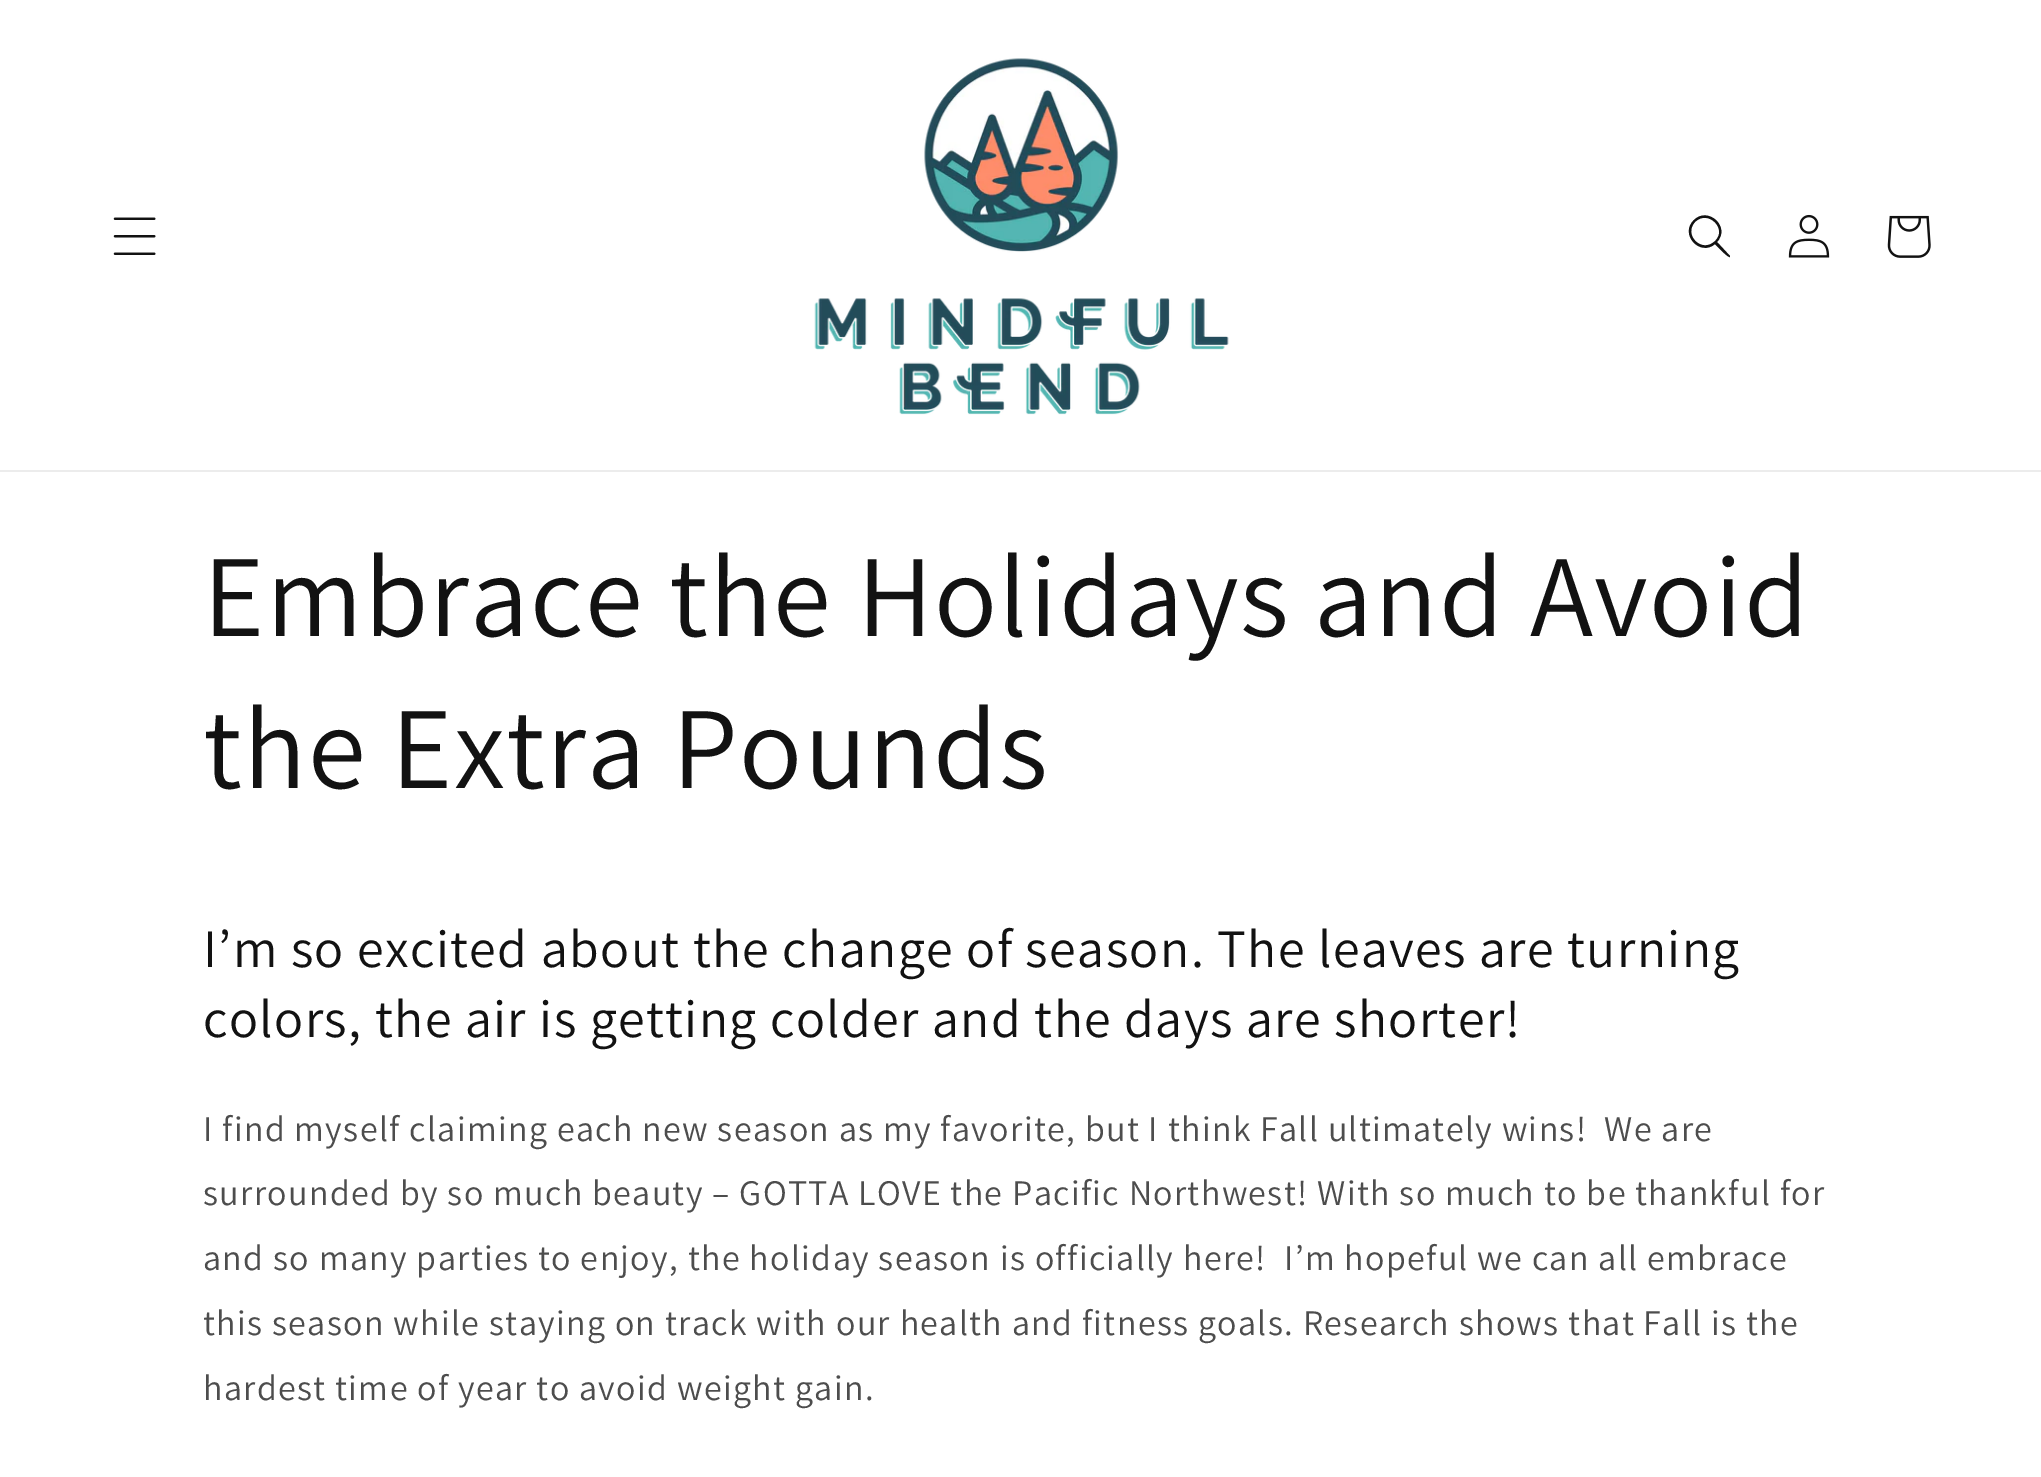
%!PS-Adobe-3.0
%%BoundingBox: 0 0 2041 1477
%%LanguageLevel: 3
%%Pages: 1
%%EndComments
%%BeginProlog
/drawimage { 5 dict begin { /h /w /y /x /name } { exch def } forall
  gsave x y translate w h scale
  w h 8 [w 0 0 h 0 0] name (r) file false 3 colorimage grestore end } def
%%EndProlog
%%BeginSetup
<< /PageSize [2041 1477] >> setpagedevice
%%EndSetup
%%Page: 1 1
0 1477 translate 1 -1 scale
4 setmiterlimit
1 setgray
0 0 2041 1477 rectfill
0.925 setgray
0 470 2041 2 rectfill
(images/1.raw) 113 217 43 38 drawimage
(images/2.raw) 814 58 415 357 drawimage
0.071 setgray
newpath 1715 241 moveto 1702 254 1683 235 1695 222 curveto 1708 209 1728 229 1715 241 curveto closepath 1715 244 moveto 1700 257 1679 234 1694 220 curveto 1708 206 1731 227 1717 242 curveto 1730 256 lineto 1730 257 lineto 1728 258 1717 246 1715 244 curveto closepath eofill
(images/3.raw) 1788 214 42 44 drawimage
(images/4.raw) 1887 215 44 43 drawimage
/Assistant-Regular [117 0 0 -117 0 0] selectfont
203 636 moveto 1.35 0 (Embrace the Holidays and Avoid) ashow
203 788 moveto 1.35 0 (the Extra Pounds) ashow
/Assistant-Regular [54 0 0 -54 0 0] selectfont
203 967 moveto 1.35 0 (I’m so excited about the change of season. The leaves are turning) ashow
203 1037 moveto 1.35 0 (colors, the air is getting colder and the days are shorter!) ashow
/Assistant-Regular [36 0 0 -36 0 0] selectfont
0.302 setgray
203 1141 moveto 1.35 0 (I find myself claiming each new season as my favorite, but I think Fall ultimately wins!  We are) ashow
203 1205 moveto 1.35 0 (surrounded by so much beauty – GOTTA LOVE the Pacific Northwest! With so much to be thankful for) ashow
203 1270 moveto 1.35 0 (and so many parties to enjoy, the holiday season is officially here!  I’m hopeful we can all embrace) ashow
203 1335 moveto 1.35 0 (this season while staying on track with our health and fitness goals. Research shows that Fall is the) ashow
203 1400 moveto 1.35 0 (hardest time of year to avoid weight gain.) ashow
showpage
%%EOF
